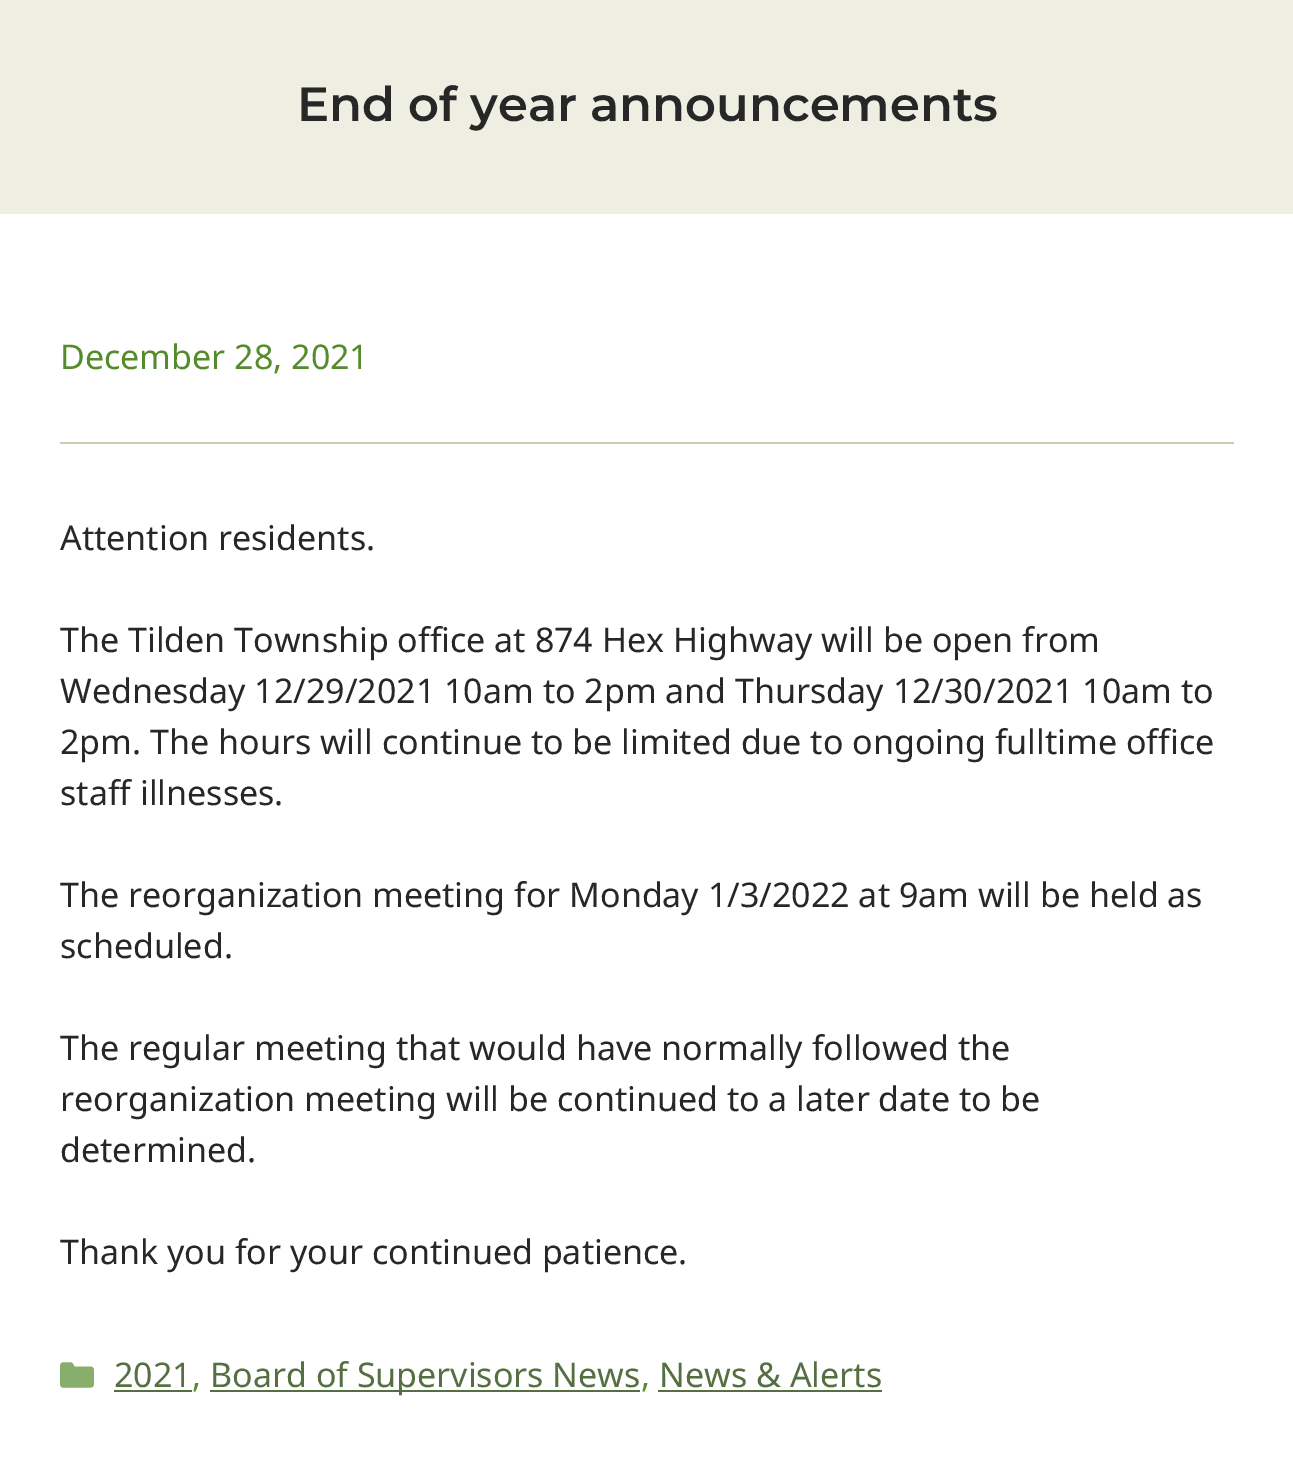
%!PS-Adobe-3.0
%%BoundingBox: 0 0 1293 1466
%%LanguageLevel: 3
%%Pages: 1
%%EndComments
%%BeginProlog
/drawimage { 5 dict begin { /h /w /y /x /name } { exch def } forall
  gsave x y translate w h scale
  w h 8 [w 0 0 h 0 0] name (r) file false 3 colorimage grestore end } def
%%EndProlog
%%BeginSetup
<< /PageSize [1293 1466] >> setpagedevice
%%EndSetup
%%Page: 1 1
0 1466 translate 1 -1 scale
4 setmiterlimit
1 setgray
0 0 1293 1466 rectfill
0.937 0.933 0.886 setrgbcolor
0 0 1293 214 rectfill
0.757 0.82 0.698 setrgbcolor
60 442 1174 2 rectfill
(images/1.raw) 60 1362 34 26 drawimage
0.333 0.435 0.259 setrgbcolor
114 1390 78 2 rectfill
210 1390 430 2 rectfill
658 1390 224 2 rectfill
/Montserrat-SemiBold [48 0 0 -48 0 0] selectfont
0.153 setgray
297 121 moveto (End of year announcements) show
/NotoSans-Regular [34 0 0 -34 0 0] selectfont
0.329 0.545 0.169 setrgbcolor
60 369 moveto (December 28, 2021) show
0.153 setgray
60 550 moveto (Attention residents.) show
60 652 moveto (The Tilden Township office at 874 Hex Highway will be open from) show
60 703 moveto (Wednesday 12/29/2021 10am to 2pm and Thursday 12/30/2021 10am to) show
60 754 moveto (2pm. The hours will continue to be limited due to ongoing fulltime office) show
60 805 moveto (staff illnesses.) show
60 907 moveto (The reorganization meeting for Monday 1/3/2022 at 9am will be held as) show
60 958 moveto (scheduled.) show
60 1060 moveto (The regular meeting that would have normally followed the) show
60 1111 moveto (reorganization meeting will be continued to a later date to be) show
60 1162 moveto (determined.) show
60 1264 moveto (Thank you for your continued patience.) show
0.333 0.435 0.259 setrgbcolor
114 1387 moveto (2021) show
0.329 0.545 0.169 setrgbcolor
192 1387 moveto (,) show
0.333 0.435 0.259 setrgbcolor
210 1387 moveto (Board of Supervisors News) show
0.329 0.545 0.169 setrgbcolor
641 1387 moveto (,) show
0.333 0.435 0.259 setrgbcolor
659 1387 moveto (News & Alerts) show
showpage
%%EOF
